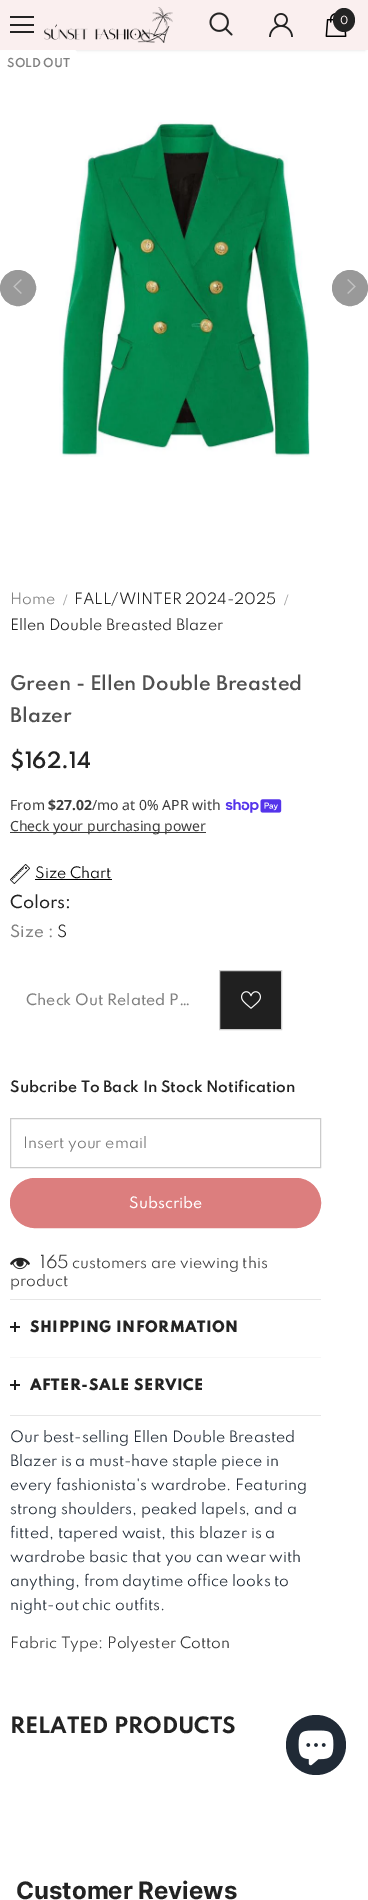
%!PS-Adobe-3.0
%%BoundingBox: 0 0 368 1900
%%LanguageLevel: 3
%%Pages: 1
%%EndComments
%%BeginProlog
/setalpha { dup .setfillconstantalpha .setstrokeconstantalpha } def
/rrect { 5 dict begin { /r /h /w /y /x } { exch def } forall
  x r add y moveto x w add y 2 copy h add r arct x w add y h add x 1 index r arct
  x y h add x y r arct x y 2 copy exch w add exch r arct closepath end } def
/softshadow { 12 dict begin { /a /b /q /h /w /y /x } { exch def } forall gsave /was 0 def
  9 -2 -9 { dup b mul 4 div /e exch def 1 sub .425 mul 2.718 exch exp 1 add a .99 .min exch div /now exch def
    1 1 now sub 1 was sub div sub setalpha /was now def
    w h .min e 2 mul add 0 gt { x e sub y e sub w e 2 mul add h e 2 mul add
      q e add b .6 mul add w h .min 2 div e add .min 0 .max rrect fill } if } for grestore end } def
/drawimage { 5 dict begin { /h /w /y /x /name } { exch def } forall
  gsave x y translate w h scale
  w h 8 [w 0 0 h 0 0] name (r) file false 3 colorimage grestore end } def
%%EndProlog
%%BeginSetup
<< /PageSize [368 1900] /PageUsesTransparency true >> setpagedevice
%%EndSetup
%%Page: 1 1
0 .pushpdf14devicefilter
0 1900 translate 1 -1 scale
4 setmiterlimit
1 setgray
0 0 368 1900 rectfill
0 setgray
3 6 362 44 0 1.5 0.12 softshadow
0.98 0.937 0.937 setrgbcolor
0 0 368 50 rectfill
0.137 setgray
10 16 24 2 rectfill
10 24 24 2 rectfill
10 31 24 2 rectfill
(images/1.raw) 44 7 129 36 drawimage
(images/2.raw) 209 12 24 24 drawimage
(images/3.raw) 269 13 24 24 drawimage
(images/4.raw) 325 13 22 24 drawimage
newpath 344 8 moveto 350 8 355 13.5 355 20 curveto 355 26.5 350 32 344 32 curveto 338 32 333 26.5 333 20 curveto 333 13.5 338 8 344 8 curveto closepath fill
1 setgray
0 50 77 30 3 rrect fill
0.6 setgray
newpath 18 288 17.5 0 360 arc closepath gsave fill grestore
stroke
(images/5.raw) 13 279 9 15 drawimage
(images/6.raw) 59 120 251 337 drawimage
newpath 350 288 17.5 0 360 arc closepath gsave fill grestore
stroke
(images/7.raw) 347 279 9 15 drawimage
(images/8.raw) 225 799 57 14 drawimage
0.235 setgray
10 832 196 1 rectfill
(images/9.raw) 10 864 20 20 drawimage
0 setgray
35 879 77 1 rectfill
0.125 setgray
newpath 219.5 970.5 moveto 281.5 970.5 lineto 281.5 1029.5 lineto 219.5 1029.5 lineto closepath gsave fill grestore
0.816 setgray
stroke
(images/10.raw) 241 991 20 18 drawimage
0.796 setgray
10.5 1118.5 310 49 rectstroke
0.863 0.494 0.494 setrgbcolor
10.5 1178.5 310 49 24.5 rrect gsave fill grestore
stroke
(images/11.raw) 10 1257 20 13 drawimage
0.902 setgray
10 1299 311 1 rectfill
10 1415 311 1 rectfill
0.125 setgray
10 1326 10 2 rectfill
14 1322 2 10 rectfill
0.965 setgray
10 1357 311 1 rectfill
0.125 setgray
10 1384 10 2 rectfill
14 1380 2 10 rectfill
0.125 0.165 0.212 setrgbcolor
newpath 316 1745 30 0 360 arc closepath fill
(images/12.raw) 298 1730 36 36 drawimage
/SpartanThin-Medium [10 0 0 -10 0 0] selectfont
0.98 0.937 0.937 setrgbcolor
340 24 moveto (0) show
/SpartanThin-SemiBold [11 0 0 -11 0 0] selectfont
0.502 setgray
7 67 moveto (SOLD OUT) show
/SpartanThin-Regular [14 0 0 -14 0 0] selectfont
10 604 moveto (Home) show
/LiberationSerif-Regular [16 0 0 -16 0 0] selectfont
0.6 setgray
63 605 moveto (/) show
/SpartanThin-Regular [14 0 0 -14 0 0] selectfont
0.137 setgray
74 604 moveto (FALL/WINTER 2024-2025) show
/LiberationSerif-Regular [16 0 0 -16 0 0] selectfont
0.6 setgray
284 605 moveto (/) show
/SpartanThin-Regular [14 0 0 -14 0 0] selectfont
0.137 setgray
10 630 moveto (Ellen Double Breasted Blazer) show
/SpartanThin-SemiBold [18 0 0 -18 0 0] selectfont
0.314 setgray
10 690 moveto (Green - Ellen Double Breasted) show
10 722 moveto (Blazer) show
/SpartanThin-SemiBold [20 0 0 -20 0 0] selectfont
0.137 setgray
10 768 moveto ($162.14) show
/NotoSans-Regular [14 0 0 -14 0 0] selectfont
0.235 setgray
10 810 moveto (From) show
/NotoSans-Bold [14 0 0 -14 0 0] selectfont
48 810 moveto ($27.02) show
/NotoSans-Regular [14 0 0 -14 0 0] selectfont
92 810 moveto (/mo at 0% APR with) show
10 831 moveto (Check your purchasing power) show
/SpartanThin-Regular [14 0 0 -14 0 0] selectfont
0 setgray
35 878 moveto (Size Chart) show
/SpartanThin-Medium [16 0 0 -16 0 0] selectfont
0.137 setgray
10 908 moveto (Colors:) show
/SpartanThin-Medium [15 0 0 -15 0 0] selectfont
0.502 setgray
10 937 moveto (Size :) show
/SpartanThin-Regular [15 0 0 -15 0 0] selectfont
0.137 setgray
57 937 moveto (S) show
/SpartanThin-Medium [14 0 0 -14 0 0] selectfont
0.502 setgray
26 1005 moveto (Check Out Related P…) show
/SpartanThin-SemiBold [14 0 0 -14 0 0] selectfont
0.137 setgray
10 1092 moveto (Subcribe To Back In Stock Notification) show
/SpartanThin-Regular [14 0 0 -14 0 0] selectfont
0.459 setgray
23 1148 moveto (Insert your email) show
/SpartanThin-Medium [14 0 0 -14 0 0] selectfont
1 setgray
129 1208 moveto (Subscribe) show
/SpartanThin-Regular [16 0 0 -16 0 0] selectfont
0.235 setgray
40 1268 moveto (165) show
/SpartanThin-Regular [14 0 0 -14 0 0] selectfont
72 1268 moveto (customers are viewing this) show
10 1286 moveto (product) show
/SpartanThin-ExtraBold [14 0 0 -14 0 0] selectfont
0.137 setgray
30 1332 moveto 0.5 0 (SHIPPING INFORMATION) ashow
30 1390 moveto 0.5 0 (AFTER-SALE SERVICE) ashow
/SpartanThin-Regular [14 0 0 -14 0 0] selectfont
0.129 0.169 0.212 setrgbcolor
10 1442 moveto (Our best-selling Ellen Double Breasted) show
10 1466 moveto (Blazer is a must-have staple piece in) show
10 1490 moveto (every fashionista's wardrobe. Featuring) show
10 1514 moveto (strong shoulders, peaked lapels, and a) show
10 1538 moveto (fitted, tapered waist, this blazer is a) show
10 1562 moveto (wardrobe basic that you can wear with) show
10 1586 moveto (anything, from daytime office looks to) show
10 1610 moveto (night-out chic outfits.) show
0.235 setgray
10 1648 moveto (Fabric Type:) show
0.2 setgray
107 1648 moveto (Polyester Cotton) show
/SpartanThin-Bold [20 0 0 -20 0 0] selectfont
0.137 setgray
10 1733 moveto (RELATED PRODUCTS) show
/Inter-Bold [24 0 0 -24 0 0] selectfont
16 1899 moveto (Customer Reviews) show
.poppdf14devicefilter showpage
%%EOF
